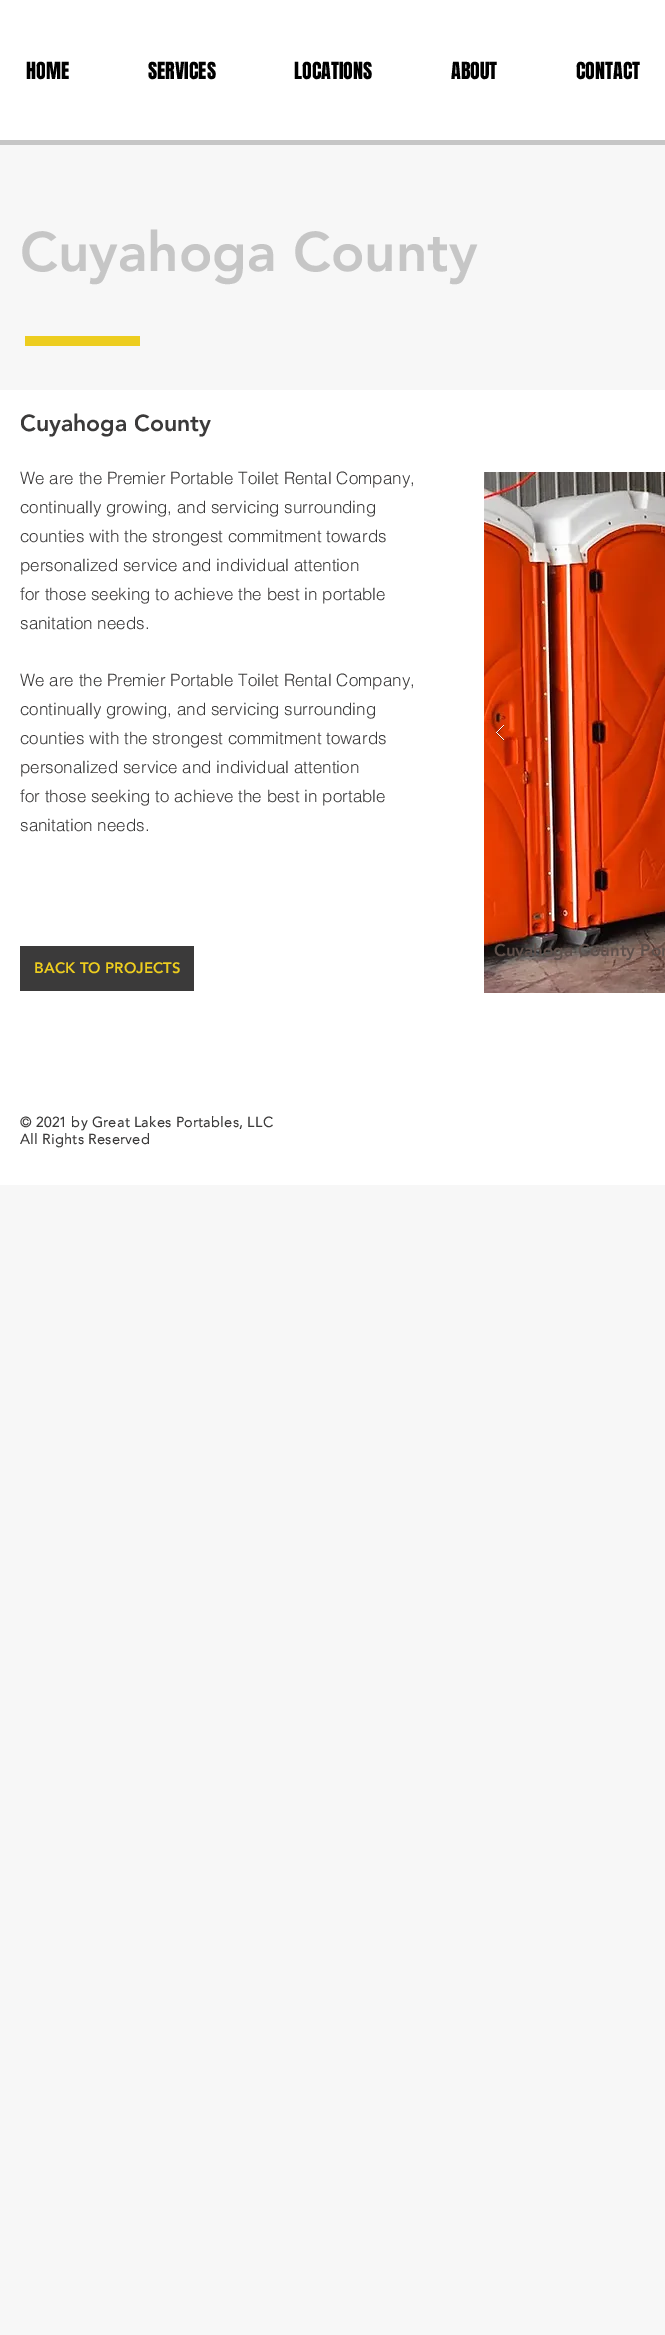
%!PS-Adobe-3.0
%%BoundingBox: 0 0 665 2335
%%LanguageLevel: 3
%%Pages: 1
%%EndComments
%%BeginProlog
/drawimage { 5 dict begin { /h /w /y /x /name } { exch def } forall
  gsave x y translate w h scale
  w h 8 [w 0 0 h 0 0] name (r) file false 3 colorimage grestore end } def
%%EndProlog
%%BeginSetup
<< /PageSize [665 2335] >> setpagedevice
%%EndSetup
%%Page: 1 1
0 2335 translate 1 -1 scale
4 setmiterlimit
0.969 setgray
0 0 665 2335 rectfill
1 setgray
0 0 665 140 rectfill
0.776 setgray
0 140 665 5 rectfill
0.929 0.804 0.122 setrgbcolor
25 336 115 10 rectfill
1 setgray
0 390 665 795 rectfill
(images/2.raw) 484 472 181 521 drawimage
(images/1.raw) 496 725 8 16 drawimage
0.231 0.227 0.227 setrgbcolor
20 946 174 45 rectfill
/Anton-Regular [20 0 0 -20 0 0] selectfont
0 setgray
26 79 moveto (HOME) show
148 79 moveto (SERVICES) show
294 79 moveto (LOCATIONS) show
451 79 moveto (ABOUT) show
576 79 moveto (CONTACT) show
/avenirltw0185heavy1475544-Black [55 0 0 -55 0 0] selectfont
0.776 setgray
20 271 moveto (Cuyahoga County) show
/avenirltw0185heavy1475544-Black [23 0 0 -23 0 0] selectfont
0.231 0.227 0.227 setrgbcolor
20 431 moveto (Cuyahoga County) show
/helvetica-Light [17 0 0 -17 0 0] selectfont
20 484 moveto (We are the Premier Portable Toilet Rental Company,) show
20 513 moveto (continually growing, and servicing surrounding) show
20 542 moveto (counties with the strongest commitment towards) show
20 571 moveto (personalized service and individual attention) show
20 600 moveto (for those seeking to achieve the best in portable) show
20 629 moveto (sanitation needs.) show
20 686 moveto (We are the Premier Portable Toilet Rental Company,) show
20 715 moveto (continually growing, and servicing surrounding) show
20 744 moveto (counties with the strongest commitment towards) show
20 773 moveto (personalized service and individual attention) show
20 802 moveto (for those seeking to achieve the best in portable) show
20 831 moveto (sanitation needs.) show
/avenirltw0185heavy1475544-Black [17 0 0 -17 0 0] selectfont
0.373 0.314 0.294 setrgbcolor
494 956 moveto (Cuyahoga County Por) show
/avenirltw0185heavy1475544-Black [15 0 0 -15 0 0] selectfont
0.929 0.804 0.122 setrgbcolor
34 973 moveto (BACK TO PROJECTS) show
/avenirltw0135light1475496-Bold [14 0 0 -14 0 0] selectfont
0.231 0.227 0.227 setrgbcolor
20 1127 moveto 0.55 0 (© 2021 by Great Lakes Portables, LLC) ashow
20 1144 moveto 0.55 0 (All Rights Reserved) ashow
showpage
%%EOF
